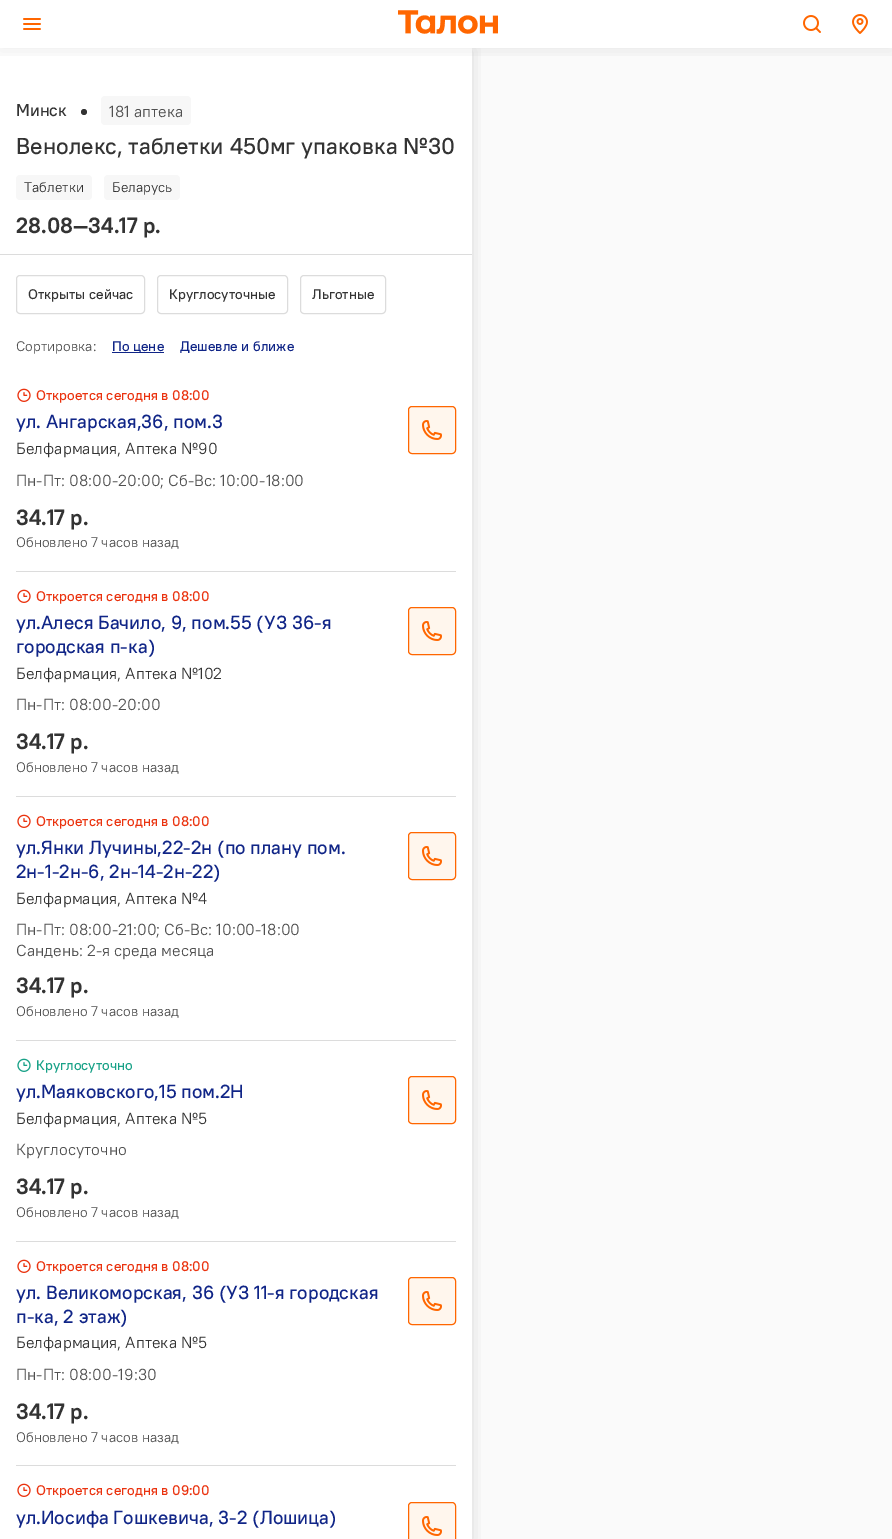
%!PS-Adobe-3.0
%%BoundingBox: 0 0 892 1539
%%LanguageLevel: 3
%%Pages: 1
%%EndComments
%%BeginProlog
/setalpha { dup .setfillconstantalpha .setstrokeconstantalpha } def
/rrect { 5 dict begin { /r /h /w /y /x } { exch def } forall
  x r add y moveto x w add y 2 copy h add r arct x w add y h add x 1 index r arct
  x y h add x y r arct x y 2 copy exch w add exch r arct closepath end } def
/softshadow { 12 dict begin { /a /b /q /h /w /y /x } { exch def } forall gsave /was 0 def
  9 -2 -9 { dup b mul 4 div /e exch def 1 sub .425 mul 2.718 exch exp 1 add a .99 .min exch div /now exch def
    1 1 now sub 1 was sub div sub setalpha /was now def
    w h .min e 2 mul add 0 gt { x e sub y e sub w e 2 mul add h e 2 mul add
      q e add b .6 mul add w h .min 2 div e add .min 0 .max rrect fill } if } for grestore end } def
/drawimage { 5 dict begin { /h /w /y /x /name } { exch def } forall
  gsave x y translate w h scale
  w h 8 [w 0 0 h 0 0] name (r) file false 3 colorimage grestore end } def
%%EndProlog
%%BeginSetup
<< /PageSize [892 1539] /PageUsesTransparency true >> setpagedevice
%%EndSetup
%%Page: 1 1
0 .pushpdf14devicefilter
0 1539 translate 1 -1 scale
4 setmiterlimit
1 setgray
0 0 892 1539 rectfill
0.98 setgray
472 48 420 1491 rectfill
gsave
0 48 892 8 rectclip
0.2 setgray
0 3 892 48 0 8 0.08 softshadow
grestore
gsave
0 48 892 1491 rectclip
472 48 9 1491 rectclip
0.2 setgray
0 50 472 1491 0 8 0.16 softshadow
grestore
(images/1.raw) 23 18 18 12 drawimage
(images/2.raw) 398 10 100 24 drawimage
(images/3.raw) 803 15 18 18 drawimage
(images/4.raw) 852 14 16 20 drawimage
0.863 setgray
0 254 472 1 rectfill
0.2 setgray
newpath 84 112 3 0 360 arc closepath fill
0.969 setgray
101 96 90 29 4 rrect fill
16 175 76 25 4 rrect fill
104 175 76 25 4 rrect fill
0.863 setgray
16.5 275.5 128 38 3.5 rrect stroke
157.5 275.5 130 38 3.5 rrect stroke
300.5 275.5 85 38 3.5 rrect stroke
0.063 0.145 0.529 setrgbcolor
112 352 52 1 rectfill
(images/5.raw) 17 388 14 14 drawimage
1 0.965 0.929 setrgbcolor
408.5 406.5 47 47 3.5 rrect gsave fill grestore
1 0.4 0 setrgbcolor
stroke
(images/6.raw) 422 420 20 20 drawimage
0.863 setgray
16 571 440 1 rectfill
(images/5.raw) 17 589 14 14 drawimage
1 0.965 0.929 setrgbcolor
408.5 607.5 47 47 3.5 rrect gsave fill grestore
1 0.4 0 setrgbcolor
stroke
(images/6.raw) 422 621 20 20 drawimage
0.863 setgray
16 796 440 1 rectfill
(images/5.raw) 17 814 14 14 drawimage
1 0.965 0.929 setrgbcolor
408.5 832.5 47 47 3.5 rrect gsave fill grestore
1 0.4 0 setrgbcolor
stroke
(images/6.raw) 422 846 20 20 drawimage
0.863 setgray
16 1040 440 1 rectfill
(images/7.raw) 17 1058 14 14 drawimage
1 0.965 0.929 setrgbcolor
408.5 1076.5 47 47 3.5 rrect gsave fill grestore
1 0.4 0 setrgbcolor
stroke
(images/6.raw) 422 1090 20 20 drawimage
0.863 setgray
16 1241 440 1 rectfill
(images/5.raw) 17 1259 14 14 drawimage
1 0.965 0.929 setrgbcolor
408.5 1277.5 47 47 3.5 rrect gsave fill grestore
1 0.4 0 setrgbcolor
stroke
(images/6.raw) 422 1291 20 20 drawimage
0.863 setgray
16 1465 440 1 rectfill
(images/5.raw) 17 1483 14 14 drawimage
1 0.965 0.929 setrgbcolor
newpath 412 1502 moveto 452 1502 lineto 454 1502 456 1504 456 1506 curveto 456 1539 lineto 408 1539 lineto 408 1506 lineto 408 1504 410 1502 412 1502 curveto closepath fill
1 0.4 0 setrgbcolor
408.5 1502.5 47 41 3.5 rrect stroke
(images/6.raw) 422 1516 20 20 drawimage
/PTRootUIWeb-Medium [17 0 0 -17 0 0] selectfont
0.2 setgray
16 116 moveto (Минск) show
/PTRootUIWeb-Regular [16 0 0 -16 0 0] selectfont
0.314 setgray
109 117 moveto (181 аптека) show
/PTRootUIWeb-Medium [23 0 0 -23 0 0] selectfont
0.2 setgray
16 154 moveto (Венолекс, таблетки 450мг упаковка №30) show
/PTRootUIWeb-Regular [14 0 0 -14 0 0] selectfont
24 192 moveto (Таблетки) show
112 192 moveto (Беларусь) show
/PTRootUIWeb-Bold [22 0 0 -22 0 0] selectfont
16 233 moveto (28.08—34.17 р.) show
/PTRootUIWeb-Medium [14 0 0 -14 0 0] selectfont
28 299 moveto (Открыты сейчас) show
169 299 moveto (Круглосуточные) show
312 299 moveto (Льготные) show
/PTRootUIWeb-Regular [14 0 0 -14 0 0] selectfont
0.314 setgray
16 351 moveto (Сортировка:) show
/PTRootUIWeb-Medium [14 0 0 -14 0 0] selectfont
0.063 0.145 0.529 setrgbcolor
112 351 moveto (По цене) show
180 351 moveto (Дешевле и ближе) show
0.918 0.196 0.055 setrgbcolor
36 400 moveto (Откроется сегодня в 08:00) show
/PTRootUIWeb-Medium [19 0 0 -19 0 0] selectfont
0.063 0.145 0.529 setrgbcolor
16 428 moveto (ул. Ангарская,36, пом.3) show
/PTRootUIWeb-Regular [16 0 0 -16 0 0] selectfont
0.2 setgray
16 454 moveto (Белфармация, Аптека №90) show
0.314 setgray
16 486 moveto (Пн-Пт: 08:00-20:00; Сб-Вс: 10:00-18:00) show
/PTRootUIWeb-Bold [22 0 0 -22 0 0] selectfont
0.2 setgray
16 525 moveto (34.17 р.) show
/PTRootUIWeb-Regular [14 0 0 -14 0 0] selectfont
0.314 setgray
16 547 moveto (Обновлено 7 часов назад) show
/PTRootUIWeb-Medium [14 0 0 -14 0 0] selectfont
0.918 0.196 0.055 setrgbcolor
36 601 moveto (Откроется сегодня в 08:00) show
/PTRootUIWeb-Medium [19 0 0 -19 0 0] selectfont
0.063 0.145 0.529 setrgbcolor
16 629 moveto (ул.Алеся Бачило, 9, пом.55 \(УЗ 36-я) show
16 653 moveto (городская п-ка\)) show
/PTRootUIWeb-Regular [16 0 0 -16 0 0] selectfont
0.2 setgray
16 679 moveto (Белфармация, Аптека №102) show
0.314 setgray
16 710 moveto (Пн-Пт: 08:00-20:00) show
/PTRootUIWeb-Bold [22 0 0 -22 0 0] selectfont
0.2 setgray
16 749 moveto (34.17 р.) show
/PTRootUIWeb-Regular [14 0 0 -14 0 0] selectfont
0.314 setgray
16 772 moveto (Обновлено 7 часов назад) show
/PTRootUIWeb-Medium [14 0 0 -14 0 0] selectfont
0.918 0.196 0.055 setrgbcolor
36 826 moveto (Откроется сегодня в 08:00) show
/PTRootUIWeb-Medium [19 0 0 -19 0 0] selectfont
0.063 0.145 0.529 setrgbcolor
16 854 moveto (ул.Янки Лучины,22-2н \(по плану пом.) show
16 878 moveto (2н-1-2н-6, 2н-14-2н-22\)) show
/PTRootUIWeb-Regular [16 0 0 -16 0 0] selectfont
0.2 setgray
16 904 moveto (Белфармация, Аптека №4) show
0.314 setgray
16 935 moveto (Пн-Пт: 08:00-21:00; Сб-Вс: 10:00-18:00) show
16 956 moveto (Сандень: 2-я среда месяца) show
/PTRootUIWeb-Bold [22 0 0 -22 0 0] selectfont
0.2 setgray
16 993 moveto (34.17 р.) show
/PTRootUIWeb-Regular [14 0 0 -14 0 0] selectfont
0.314 setgray
16 1016 moveto (Обновлено 7 часов назад) show
/PTRootUIWeb-Medium [14 0 0 -14 0 0] selectfont
0.094 0.631 0.529 setrgbcolor
36 1070 moveto (Круглосуточно) show
/PTRootUIWeb-Medium [19 0 0 -19 0 0] selectfont
0.063 0.145 0.529 setrgbcolor
16 1098 moveto (ул.Маяковского,15 пом.2Н) show
/PTRootUIWeb-Regular [16 0 0 -16 0 0] selectfont
0.2 setgray
16 1124 moveto (Белфармация, Аптека №5) show
0.314 setgray
16 1155 moveto (Круглосуточно) show
/PTRootUIWeb-Bold [22 0 0 -22 0 0] selectfont
0.2 setgray
16 1194 moveto (34.17 р.) show
/PTRootUIWeb-Regular [14 0 0 -14 0 0] selectfont
0.314 setgray
16 1217 moveto (Обновлено 7 часов назад) show
/PTRootUIWeb-Medium [14 0 0 -14 0 0] selectfont
0.918 0.196 0.055 setrgbcolor
36 1271 moveto (Откроется сегодня в 08:00) show
/PTRootUIWeb-Medium [19 0 0 -19 0 0] selectfont
0.063 0.145 0.529 setrgbcolor
16 1299 moveto (ул. Великоморская, 36 \(УЗ 11-я городская) show
16 1323 moveto (п-ка, 2 этаж\)) show
/PTRootUIWeb-Regular [16 0 0 -16 0 0] selectfont
0.2 setgray
16 1348 moveto (Белфармация, Аптека №5) show
0.314 setgray
16 1380 moveto (Пн-Пт: 08:00-19:30) show
/PTRootUIWeb-Bold [22 0 0 -22 0 0] selectfont
0.2 setgray
16 1419 moveto (34.17 р.) show
/PTRootUIWeb-Regular [14 0 0 -14 0 0] selectfont
0.314 setgray
16 1442 moveto (Обновлено 7 часов назад) show
/PTRootUIWeb-Medium [14 0 0 -14 0 0] selectfont
0.918 0.196 0.055 setrgbcolor
36 1495 moveto (Откроется сегодня в 09:00) show
/PTRootUIWeb-Medium [19 0 0 -19 0 0] selectfont
0.063 0.145 0.529 setrgbcolor
16 1524 moveto (ул.Иосифа Гошкевича, 3-2 \(Лошица\)) show
.poppdf14devicefilter showpage
%%EOF
